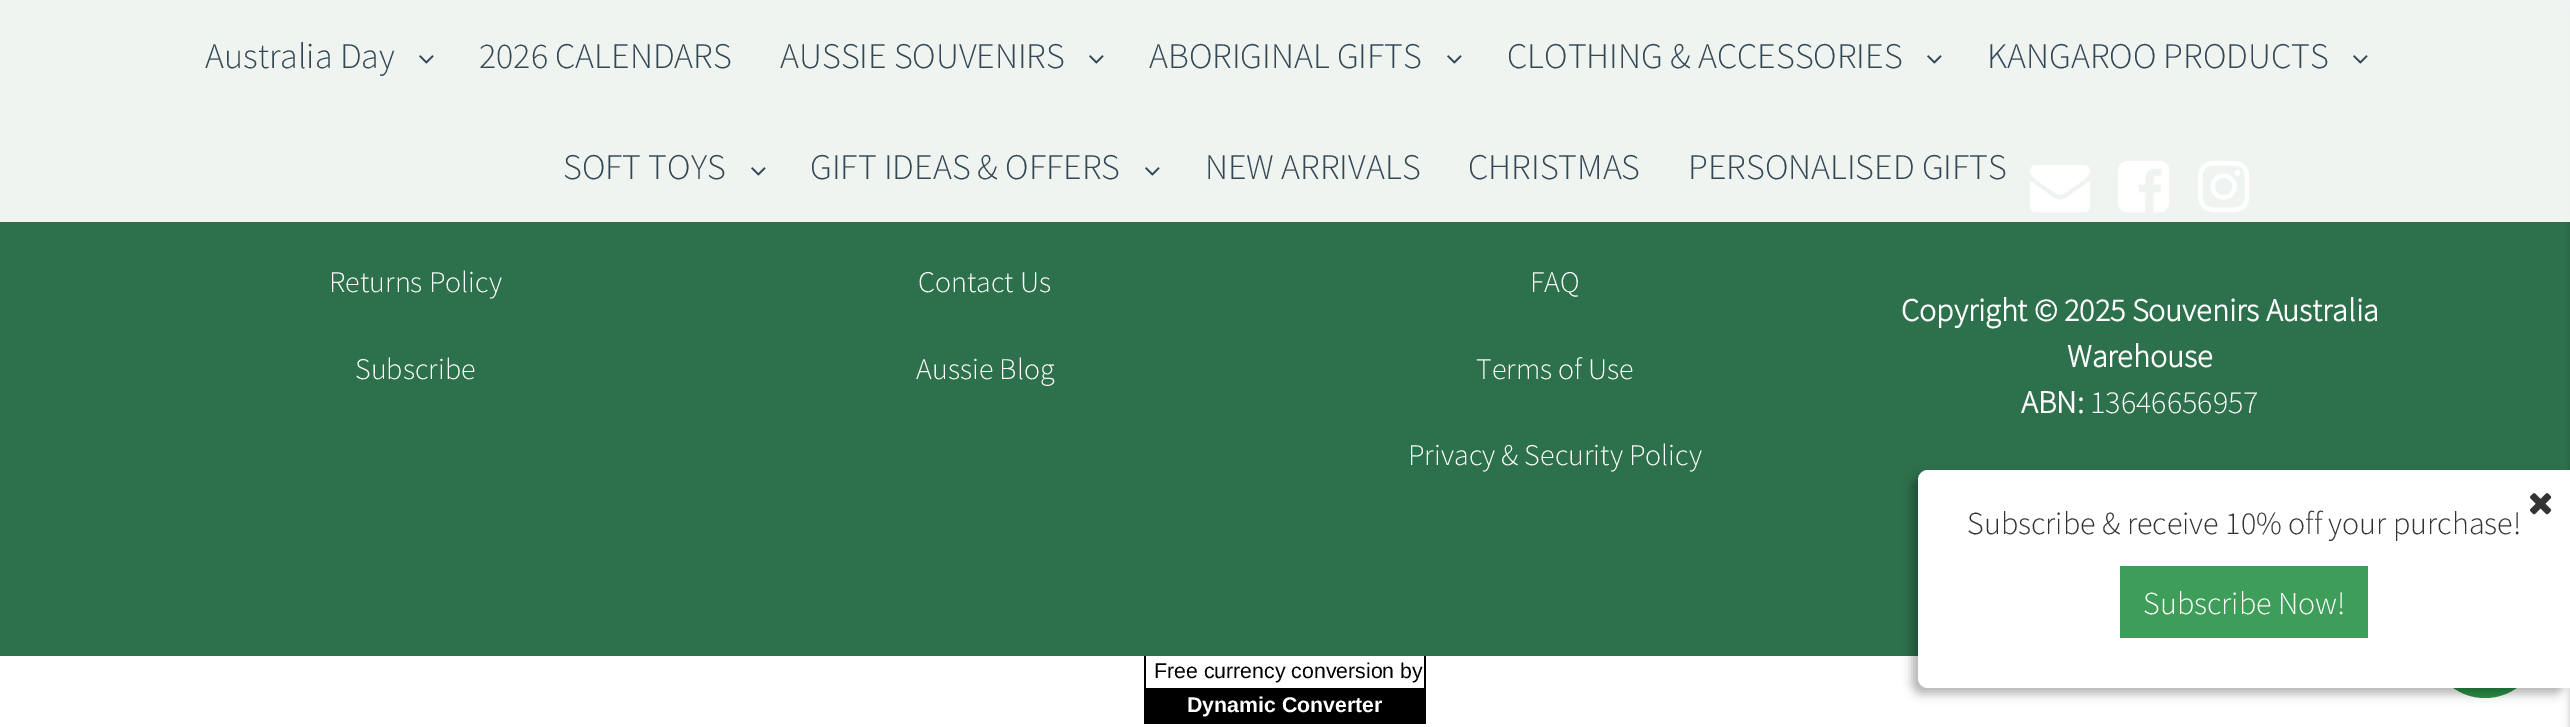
%!PS-Adobe-3.0
%%BoundingBox: 0 0 2570 727
%%LanguageLevel: 3
%%Pages: 1
%%EndComments
%%BeginProlog
/setalpha { dup .setfillconstantalpha .setstrokeconstantalpha } def
/rrect { 5 dict begin { /r /h /w /y /x } { exch def } forall
  x r add y moveto x w add y 2 copy h add r arct x w add y h add x 1 index r arct
  x y h add x y r arct x y 2 copy exch w add exch r arct closepath end } def
/softshadow { 12 dict begin { /a /b /q /h /w /y /x } { exch def } forall gsave /was 0 def
  9 -2 -9 { dup b mul 4 div /e exch def 1 sub .425 mul 2.718 exch exp 1 add a .99 .min exch div /now exch def
    1 1 now sub 1 was sub div sub setalpha /was now def
    w h .min e 2 mul add 0 gt { x e sub y e sub w e 2 mul add h e 2 mul add
      q e add b .6 mul add w h .min 2 div e add .min 0 .max rrect fill } if } for grestore end } def
/drawimage { 5 dict begin { /h /w /y /x /name } { exch def } forall
  gsave x y translate w h scale
  w h 8 [w 0 0 h 0 0] name (r) file false 3 colorimage grestore end } def
%%EndProlog
%%BeginSetup
<< /PageSize [2570 727] /PageUsesTransparency true >> setpagedevice
%%EndSetup
%%Page: 1 1
0 .pushpdf14devicefilter
0 727 translate 1 -1 scale
4 setmiterlimit
1 setgray
0 0 2570 727 rectfill
0 setgray
1424 652 2 72 rectfill
1144 652 2 72 rectfill
0.176 0.439 0.298 setrgbcolor
0 0 2570 656 rectfill
0 setgray
2570 2 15 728 0 5 0.12 softshadow
2570 4 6 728 0 2 0.14 softshadow
(images/3.raw) 2030 165 60 48 drawimage
(images/4.raw) 2118 160 52 53 drawimage
(images/5.raw) 2198 160 52 53 drawimage
0.92 setalpha
1 setgray
0 0 2570 222 rectfill
1 setalpha
(images/1.raw) 419 55 15 9 drawimage
(images/2.raw) 1089 55 15 9 drawimage
(images/1.raw) 1447 55 15 9 drawimage
(images/1.raw) 1927 55 15 9 drawimage
(images/1.raw) 2353 55 15 9 drawimage
(images/1.raw) 751 167 15 9 drawimage
(images/1.raw) 1145 167 15 9 drawimage
0.161 0.573 0.278 setrgbcolor
newpath 2485 643 55 0 360 arc closepath fill
0 setgray
1912 476 652 218 10 5 0.3 softshadow
1 setgray
newpath 1928 470 moveto 2570 470 lineto 2570 688 lineto 1928 688 lineto 1922.5 688 1918 683.5 1918 678 curveto 1918 480 lineto 1918 474.5 1922.5 470 1928 470 curveto closepath fill
(images/6.raw) 2530 493 22 22 drawimage
0.243 0.616 0.349 setrgbcolor
2120 566 248 72 rectfill
0 setgray
1146 688 278 36 rectfill
/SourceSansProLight-Light [36 0 0 -36 0 0] selectfont
0.204 0.278 0.329 setrgbcolor
205 68 moveto (Australia Day) show
479 68 moveto (2026 CALENDARS) show
780 68 moveto (AUSSIE SOUVENIRS) show
1149 68 moveto (ABORIGINAL GIFTS) show
1507 68 moveto (CLOTHING & ACCESSORIES) show
1987 68 moveto (KANGAROO PRODUCTS) show
563 179 moveto (SOFT TOYS) show
810 179 moveto (GIFT IDEAS & OFFERS) show
1205 179 moveto (NEW ARRIVALS) show
1468 179 moveto (CHRISTMAS) show
1688 179 moveto (PERSONALISED GIFTS) show
/SourceSansProLight-Light [30 0 0 -30 0 0] selectfont
1 setgray
329 292 moveto (Returns Policy) show
355 379 moveto (Subscribe) show
918 292 moveto (Contact Us) show
916 379 moveto (Aussie Blog) show
1530 292 moveto (FAQ) show
1476 379 moveto (Terms of Use) show
1408 465 moveto (Privacy & Security Policy) show
/SourceSansProLight-Bold [32 0 0 -32 0 0] selectfont
1901 321 moveto (Copyright © 2025 Souvenirs Australia) show
2067 367 moveto (Warehouse) show
2021 413 moveto (ABN:) show
/SourceSansProLight-Light [32 0 0 -32 0 0] selectfont
2090 413 moveto (13646656957) show
0.2 setgray
1967 534 moveto (Subscribe & receive 10% off your purchase!) show
1 setgray
2143 614 moveto (Subscribe Now!) show
/LiberationSans-Regular [21.3 0 0 -21.3 0 0] selectfont
0 setgray
1154 678 moveto (Free currency conversion by) show
/LiberationSans-Bold [21.3 0 0 -21.3 0 0] selectfont
1 setgray
1187 712 moveto (Dynamic Converter) show
.poppdf14devicefilter showpage
%%EOF
